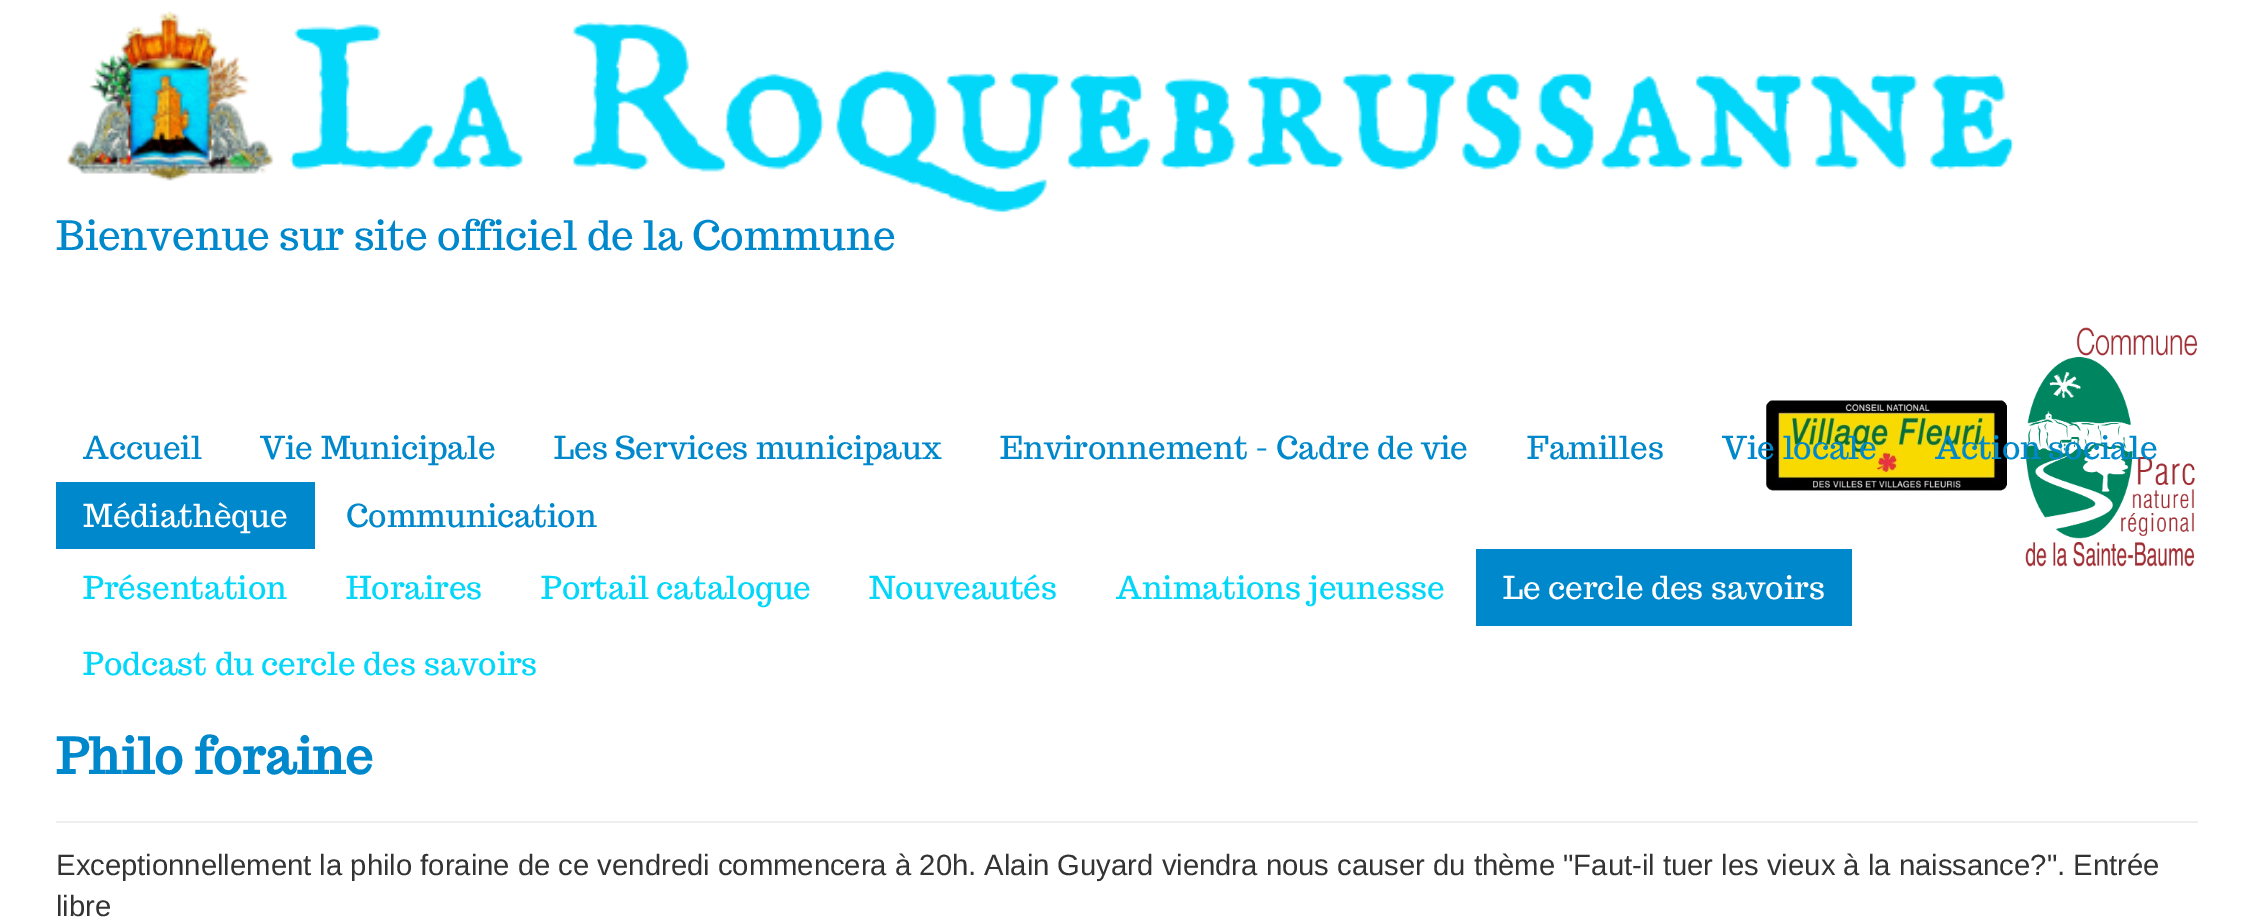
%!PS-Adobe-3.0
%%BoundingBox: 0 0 2254 919
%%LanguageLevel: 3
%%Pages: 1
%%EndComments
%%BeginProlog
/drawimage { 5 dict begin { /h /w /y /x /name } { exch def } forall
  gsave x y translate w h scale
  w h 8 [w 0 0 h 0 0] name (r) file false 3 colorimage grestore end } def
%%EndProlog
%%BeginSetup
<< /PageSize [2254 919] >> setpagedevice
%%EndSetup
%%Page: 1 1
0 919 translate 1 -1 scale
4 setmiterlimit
1 setgray
0 0 2254 919 rectfill
(images/1.raw) 67 11 1947 202 drawimage
(images/2.raw) 1766 400 241 91 drawimage
(images/3.raw) 2025 327 172 240 drawimage
0 0.533 0.8 setrgbcolor
56 482 259 67 rectfill
1476 549 376 77 rectfill
0.933 setgray
56 821 2142 2 rectfill
/Trocchi-Regular [40.5 0 0 -40.5 0 0] selectfont
0 0.533 0.8 setrgbcolor
56 250 moveto (Bienvenue sur site officiel de la Commune) show
/Trocchi-Regular [31.5 0 0 -31.5 0 0] selectfont
83 459 moveto (Accueil) show
260 459 moveto (Vie Municipale) show
554 459 moveto (Les Services municipaux) show
1000 459 moveto (Environnement - Cadre de vie) show
1527 459 moveto (Familles) show
1722 459 moveto (Vie locale) show
1935 459 moveto (Action sociale) show
1 setgray
83 527 moveto (Médiathèque) show
0 0.533 0.8 setrgbcolor
346 527 moveto (Communication) show
0.008 0.843 0.98 setrgbcolor
83 599 moveto (Présentation) show
346 599 moveto (Horaires) show
541 599 moveto (Portail catalogue) show
869 599 moveto (Nouveautés) show
1116 599 moveto (Animations jeunesse) show
1 setgray
1503 599 moveto (Le cercle des savoirs) show
0.008 0.843 0.98 setrgbcolor
83 675 moveto (Podcast du cercle des savoirs) show
/Trocchi-Bold [49.5 0 0 -49.5 0 0] selectfont
0 0.533 0.8 setrgbcolor
56 774 moveto (Philo foraine) show
/LiberationSans-Regular [29.25 0 0 -29.25 0 0] selectfont
0.2 setgray
56 875 moveto (Exceptionnellement la philo foraine de ce vendredi commencera à 20h. Alain Guyard viendra nous causer du thème "Faut-il tuer les vieux à la naissance?". Entrée) show
56 916 moveto (libre) show
showpage
%%EOF
